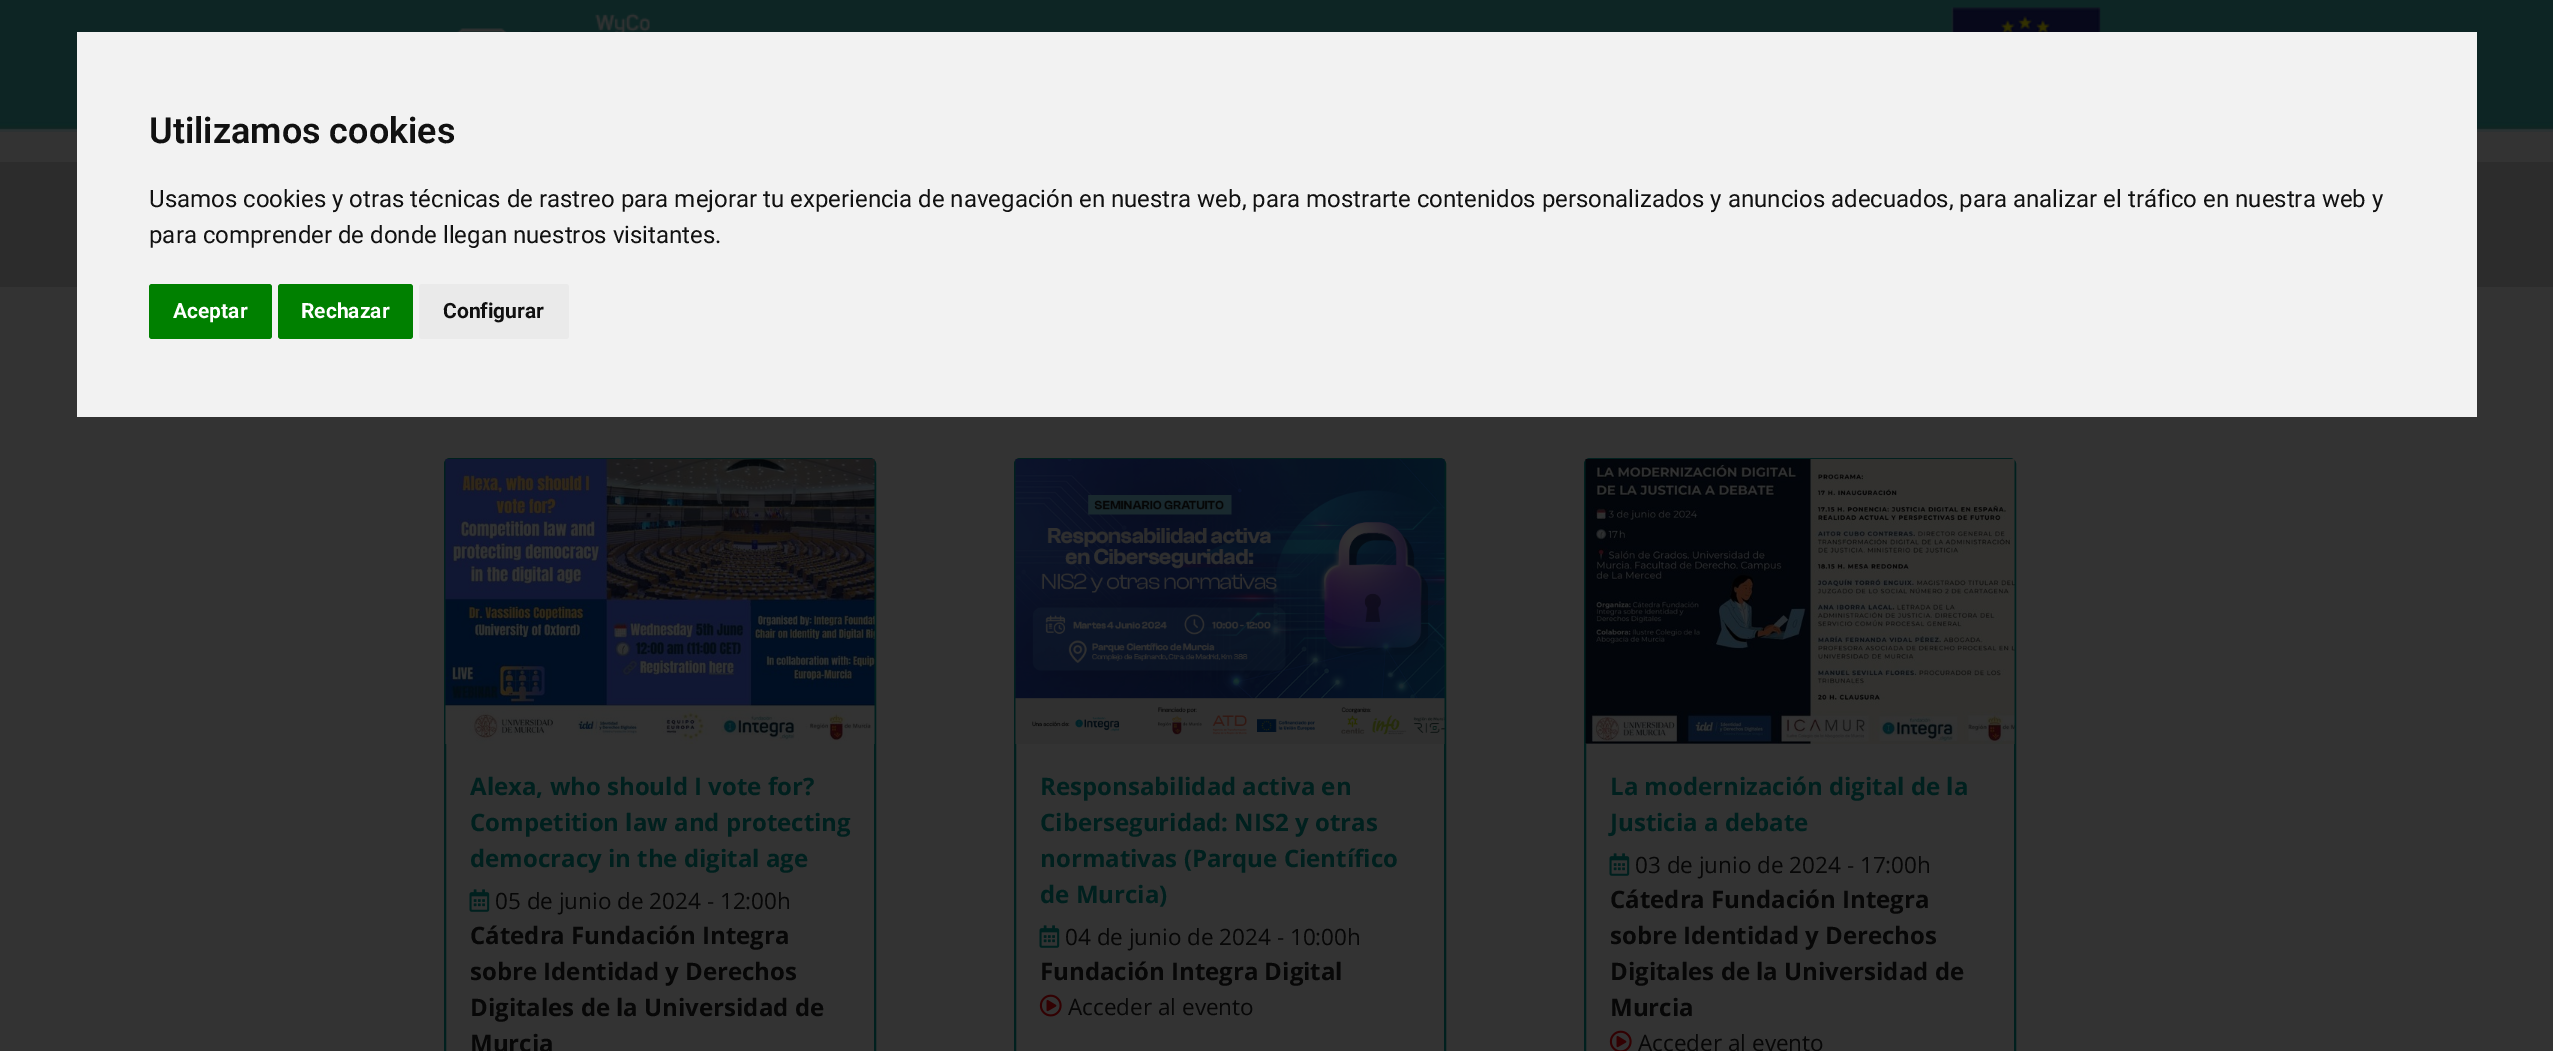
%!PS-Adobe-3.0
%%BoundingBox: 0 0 2553 1051
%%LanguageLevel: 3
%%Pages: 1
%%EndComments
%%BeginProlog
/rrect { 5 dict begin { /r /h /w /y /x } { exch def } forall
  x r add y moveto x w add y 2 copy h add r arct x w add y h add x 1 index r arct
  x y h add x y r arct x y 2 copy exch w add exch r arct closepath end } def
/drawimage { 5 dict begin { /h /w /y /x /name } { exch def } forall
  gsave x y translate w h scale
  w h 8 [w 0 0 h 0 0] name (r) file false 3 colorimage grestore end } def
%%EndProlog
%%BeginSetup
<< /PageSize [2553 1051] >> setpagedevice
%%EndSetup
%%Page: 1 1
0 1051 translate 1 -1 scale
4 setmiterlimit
0.2 setgray
0 0 2553 1051 rectfill
(images/1.raw) 0 0 2553 132 drawimage
(images/2.raw) 457 13 193 19 drawimage
(images/3.raw) 1951 7 150 25 drawimage
0.173 setgray
0 162 2553 125 rectfill
0.949 setgray
77 32 2400 385 rectfill
0 0.502 0 setrgbcolor
149 284 123 55 3 rrect fill
278 284 135 55 3 rrect fill
0.918 setgray
419 284 150 55 3 rrect fill
0 0.125 0.118 setrgbcolor
2 setlinewidth
445 459 430 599 5 rrect stroke
(images/4.raw) 445 459 430 285 drawimage
(images/5.raw) 469 889 21 23 drawimage
1015 459 430 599 5 rrect stroke
(images/6.raw) 1015 459 430 285 drawimage
(images/5.raw) 1039 925 21 23 drawimage
(images/7.raw) 1039 994 23 23 drawimage
1585 459 430 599 5 rrect stroke
(images/8.raw) 1585 459 430 285 drawimage
(images/5.raw) 1609 853 21 23 drawimage
(images/9.raw) 1609 1030 23 21 drawimage
/Roboto-SemiBold [36 0 0 -36 0 0] selectfont
0.067 setgray
149 143 moveto (Utilizamos cookies) show
/Roboto-Regular [24 0 0 -24 0 0] selectfont
149 207 moveto (Usamos cookies y otras técnicas de rastreo para mejorar tu experiencia de navegación en nuestra web, para mostrarte contenidos personalizados y anuncios adecuados, para analizar el tráfico en nuestra web y) show
149 243 moveto (para comprender de donde llegan nuestros visitantes.) show
/Roboto-Bold [21 0 0 -21 0 0] selectfont
1 setgray
173 318 moveto (Aceptar) show
301 318 moveto (Rechazar) show
0.067 setgray
443 318 moveto (Configurar) show
/OpenSans-Bold [24 0 0 -24 0 0] selectfont
0 0.125 0.118 setrgbcolor
470 795 moveto (Alexa, who should I vote for?) show
470 831 moveto (Competition law and protecting) show
470 867 moveto (democracy in the digital age) show
/OpenSans-Regular [22.5 0 0 -22.5 0 0] selectfont
0.027 setgray
495 909 moveto (05 de junio de 2024 - 12:00h) show
/OpenSans-Bold [24 0 0 -24 0 0] selectfont
470 944 moveto (Cátedra Fundación Integra) show
470 980 moveto (sobre Identidad y Derechos) show
470 1016 moveto (Digitales de la Universidad de) show
470 1052 moveto (Murcia) show
0 0.125 0.118 setrgbcolor
1040 795 moveto (Responsabilidad activa en) show
1040 831 moveto (Ciberseguridad: NIS2 y otras) show
1040 867 moveto (normativas \(Parque Científico) show
1040 903 moveto (de Murcia\)) show
/OpenSans-Regular [22.5 0 0 -22.5 0 0] selectfont
0.027 setgray
1065 945 moveto (04 de junio de 2024 - 10:00h) show
/OpenSans-Bold [24 0 0 -24 0 0] selectfont
1040 980 moveto (Fundación Integra Digital) show
/OpenSans-Regular [22.5 0 0 -22.5 0 0] selectfont
1068 1015 moveto (Acceder al evento) show
/OpenSans-Bold [24 0 0 -24 0 0] selectfont
0 0.125 0.118 setrgbcolor
1610 795 moveto (La modernización digital de la) show
1610 831 moveto (Justicia a debate) show
/OpenSans-Regular [22.5 0 0 -22.5 0 0] selectfont
0.027 setgray
1635 873 moveto (03 de junio de 2024 - 17:00h) show
/OpenSans-Bold [24 0 0 -24 0 0] selectfont
1610 908 moveto (Cátedra Fundación Integra) show
1610 944 moveto (sobre Identidad y Derechos) show
1610 980 moveto (Digitales de la Universidad de) show
1610 1016 moveto (Murcia) show
/OpenSans-Regular [22.5 0 0 -22.5 0 0] selectfont
1638 1051 moveto (Acceder al evento) show
showpage
%%EOF
